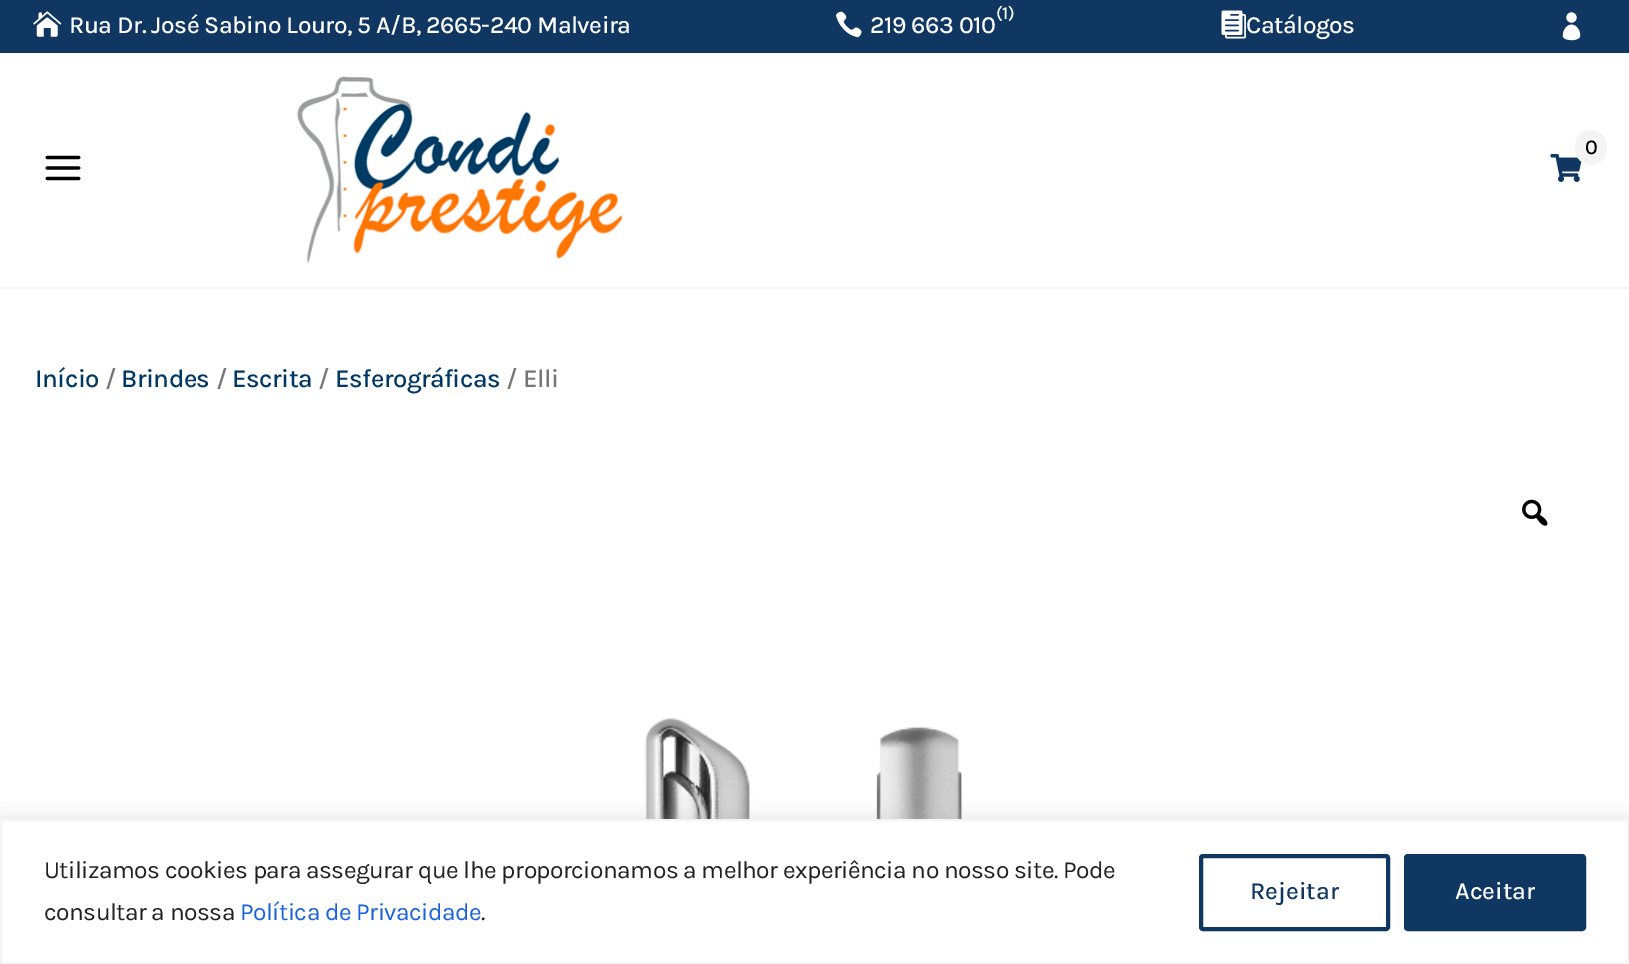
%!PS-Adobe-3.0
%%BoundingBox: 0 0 1629 964
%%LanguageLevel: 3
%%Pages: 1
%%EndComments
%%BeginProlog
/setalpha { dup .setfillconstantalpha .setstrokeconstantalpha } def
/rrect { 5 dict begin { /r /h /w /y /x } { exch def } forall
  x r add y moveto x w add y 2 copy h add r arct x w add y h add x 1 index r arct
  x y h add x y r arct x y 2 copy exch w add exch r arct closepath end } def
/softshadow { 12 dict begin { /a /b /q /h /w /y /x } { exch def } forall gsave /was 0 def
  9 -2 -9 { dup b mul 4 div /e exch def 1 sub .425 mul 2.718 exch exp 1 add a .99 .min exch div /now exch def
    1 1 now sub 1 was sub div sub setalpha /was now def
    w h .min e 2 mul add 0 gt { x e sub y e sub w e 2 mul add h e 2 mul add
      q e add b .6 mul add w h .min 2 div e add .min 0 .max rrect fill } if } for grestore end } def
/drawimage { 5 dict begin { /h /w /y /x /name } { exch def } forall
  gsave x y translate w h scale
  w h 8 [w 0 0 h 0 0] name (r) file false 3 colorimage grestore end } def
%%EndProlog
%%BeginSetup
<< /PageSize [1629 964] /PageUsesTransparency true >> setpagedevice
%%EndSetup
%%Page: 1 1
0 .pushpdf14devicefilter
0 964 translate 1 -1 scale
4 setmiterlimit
1 setgray
0 0 1629 964 rectfill
0.953 0.953 0.957 setrgbcolor
0 287 1629 2 rectfill
0.063 0.216 0.38 setrgbcolor
0 0 1629 53 rectfill
(images/1.raw) 33 11 29 26 drawimage
(images/2.raw) 835 11 27 27 drawimage
(images/3.raw) 1221 10 25 29 drawimage
(images/4.raw) 1562 12 19 29 drawimage
(images/5.raw) 45 155 36 26 drawimage
(images/6.raw) 296 76 327 187 drawimage
(images/7.raw) 1550 154 32 28 drawimage
0.957 setgray
1575 130 32 35 16 rrect fill
(images/8.raw) 1522 499 26 27 drawimage
(images/9.raw) 644 718 319 101 drawimage
0.675 0.671 0.671 setrgbcolor
0 817 1629 146 0 9 0.3 softshadow
1 setgray
newpath 1 820 moveto 1628 820 lineto 1628 963 lineto 1 963 lineto closepath gsave fill grestore
0.957 setgray
2 setlinewidth
stroke
0.063 0.216 0.38 setrgbcolor
4 setlinewidth
1201 856 187 73 2 rrect stroke
1406 856 178 73 2 rrect gsave fill grestore
stroke
/Karla-Medium [24.5 0 0 -24.5 0 0] selectfont
1 setgray
69 33 moveto -0.53 0 (Rua Dr. José Sabino Louro, 5 A/B, 2665-240 Malveira) ashow
/Karla-Medium [18 0 0 -18 0 0] selectfont
996 19 moveto -0.53 0 (\(1\)) ashow
/Karla-Medium [24.5 0 0 -24.5 0 0] selectfont
870 33 moveto -0.53 0 (219 663 010) ashow
1246 33 moveto -0.53 0 (Catálogos) ashow
/Karla-Medium [21 0 0 -21 0 0] selectfont
0 setgray
1585 154 moveto -0.53 0 (0) ashow
/Karla-Medium [25.75 0 0 -25.75 0 0] selectfont
0 0.22 0.396 setrgbcolor
35 387 moveto -0.53 0 (Início) ashow
0.463 setgray
105 387 moveto -0.53 0 (/) ashow
0 0.22 0.396 setrgbcolor
121 387 moveto -0.53 0 (Brindes) ashow
0.463 setgray
216 387 moveto -0.53 0 (/) ashow
0 0.22 0.396 setrgbcolor
232 387 moveto -0.53 0 (Escrita) ashow
0.463 setgray
318 387 moveto -0.53 0 (/) ashow
0 0.22 0.396 setrgbcolor
335 387 moveto -0.53 0 (Esferográficas) ashow
0.463 setgray
506 387 moveto -0.53 0 (/ Elli) ashow
/Karla-Regular [24.5 0 0 -24.5 0 0] selectfont
0.129 setgray
44 878 moveto -0.53 0 (Utilizamos cookies para assegurar que lhe proporcionamos a melhor experiência no nosso site. Pode) ashow
44 920 moveto -0.53 0 (consultar a nossa) ashow
0.094 0.388 0.863 setrgbcolor
240 920 moveto -0.53 0 (Política de Privacidade) ashow
0.129 setgray
481 920 moveto -0.53 0 (.) ashow
/Karla-Medium [24.5 0 0 -24.5 0 0] selectfont
0.063 0.216 0.38 setrgbcolor
1250 899 moveto (Rejeitar) show
1 setgray
1455 899 moveto (Aceitar) show
.poppdf14devicefilter showpage
%%EOF
